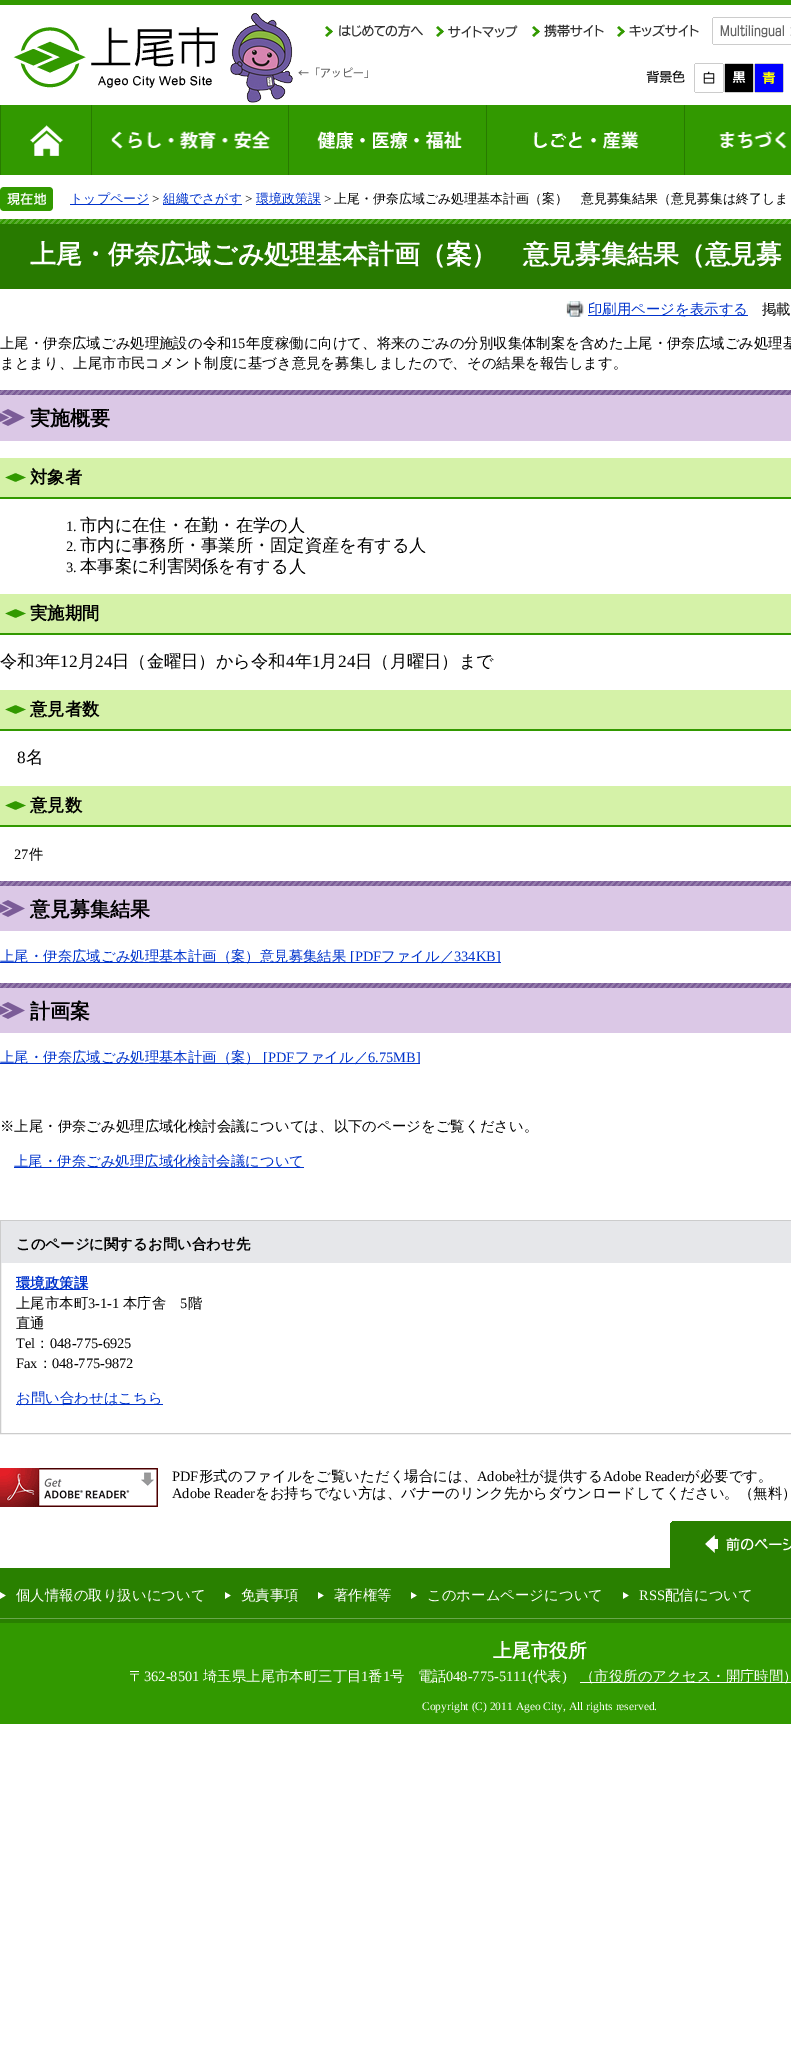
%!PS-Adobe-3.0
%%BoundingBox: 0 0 791 2050
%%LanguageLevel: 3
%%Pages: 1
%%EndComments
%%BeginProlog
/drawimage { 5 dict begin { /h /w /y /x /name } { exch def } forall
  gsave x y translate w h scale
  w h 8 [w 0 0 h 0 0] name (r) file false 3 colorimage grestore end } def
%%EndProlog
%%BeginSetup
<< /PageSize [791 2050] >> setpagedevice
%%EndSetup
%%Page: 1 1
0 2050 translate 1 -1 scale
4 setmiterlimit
1 setgray
0 0 791 2050 rectfill
0.196 0.6 0 setrgbcolor
0 0 791 5 rectfill
(images/1.raw) 13 27 205 61 drawimage
(images/3.raw) 325 24 98 13 drawimage
(images/2.raw) 230 13 138 90 drawimage
(images/4.raw) 436 25 82 13 drawimage
(images/5.raw) 532 24 72 13 drawimage
(images/6.raw) 617 24 82 13 drawimage
(images/7.raw) 712 17 79 28 drawimage
(images/8.raw) 646 70 39 13 drawimage
(images/9.raw) 694 63 30 30 drawimage
(images/10.raw) 724 63 30 30 drawimage
(images/11.raw) 754 63 30 30 drawimage
1 105 790 70 rectfill
0.157 0.478 0 setrgbcolor
91 105 1 70 rectfill
0 105 1 70 rectfill
(images/12.raw) 30 125 34 31 drawimage
288 105 1 70 rectfill
(images/13.raw) 111 131 160 18 drawimage
486 105 1 70 rectfill
(images/14.raw) 317 131 145 18 drawimage
684 105 1 70 rectfill
(images/15.raw) 533 131 106 18 drawimage
(images/16.raw) 719 131 68 18 drawimage
(images/17.raw) 0 187 53 24 drawimage
0 0.2 0.8 setrgbcolor
70 204 79 1 rectfill
163 204 79 1 rectfill
256 204 65 1 rectfill
0.157 0.478 0 setrgbcolor
0 224 791 65 rectfill
(images/18.raw) 0 219 791 5 drawimage
(images/19.raw) 566 301 18 16 drawimage
0 0.2 0.8 setrgbcolor
588 315 160 1 rectfill
0.859 0.784 0.902 setrgbcolor
0 395 791 46 rectfill
(images/20.raw) 0 390 791 36 drawimage
0.835 0.949 0.659 setrgbcolor
0 458 791 39 rectfill
(images/21.raw) 5 473 21 9 drawimage
0.196 0.6 0 setrgbcolor
0 497 791 2 rectfill
0.835 0.949 0.659 setrgbcolor
0 594 791 39 rectfill
(images/21.raw) 5 609 21 9 drawimage
0.196 0.6 0 setrgbcolor
0 633 791 2 rectfill
0.835 0.949 0.659 setrgbcolor
0 690 791 39 rectfill
(images/21.raw) 5 705 21 9 drawimage
0.196 0.6 0 setrgbcolor
0 729 791 2 rectfill
0.835 0.949 0.659 setrgbcolor
0 786 791 39 rectfill
(images/21.raw) 5 801 21 9 drawimage
0.196 0.6 0 setrgbcolor
0 825 791 2 rectfill
0.859 0.784 0.902 setrgbcolor
0 886 791 45 rectfill
(images/20.raw) 0 881 791 36 drawimage
0 0.2 0.8 setrgbcolor
0 962 501 1 rectfill
0.859 0.784 0.902 setrgbcolor
0 988 791 45 rectfill
(images/20.raw) 0 983 791 36 drawimage
0 0.2 0.8 setrgbcolor
0 1063 420 1 rectfill
14 1167 290 1 rectfill
0.8 setgray
0.5 1220.5 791 213 rectstroke
0.902 0.906 0.918 setrgbcolor
1 1221 790 42 rectfill
0 0.2 0.8 setrgbcolor
16 1289 72 1 rectfill
16 1404 147 1 rectfill
(images/22.raw) 0 1468 158 39 drawimage
(images/23.raw) 670 1521 121 47 drawimage
0.196 0.6 0 setrgbcolor
0 1623 791 101 rectfill
0.161 0.502 0 setrgbcolor
0 1568 791 55 rectfill
0.416 0.651 0.302 setrgbcolor
0 1618 791 1 rectfill
(images/24.raw) 0 1592 6 7 drawimage
(images/24.raw) 225 1592 6 7 drawimage
(images/24.raw) 318 1592 6 7 drawimage
(images/24.raw) 411 1592 6 7 drawimage
(images/24.raw) 623 1592 6 7 drawimage
1 setgray
580 1682 211 1 rectfill
/WenQuanYiZenHei-Medium [12.95 0 0 -12.95 0 0] selectfont
0 0.2 0.8 setrgbcolor
70 203 moveto (トップページ) show
/LiberationSerif-Regular [12.95 0 0 -12.95 0 0] selectfont
0 setgray
152 203 moveto (>) show
/WenQuanYiZenHei-Medium [12.95 0 0 -12.95 0 0] selectfont
0 0.2 0.8 setrgbcolor
163 203 moveto (組織でさがす) show
/LiberationSerif-Regular [12.95 0 0 -12.95 0 0] selectfont
0 setgray
245 203 moveto (>) show
/WenQuanYiZenHei-Medium [12.95 0 0 -12.95 0 0] selectfont
0 0.2 0.8 setrgbcolor
256 203 moveto (環境政策課) show
/LiberationSerif-Regular [12.95 0 0 -12.95 0 0] selectfont
0 setgray
324 203 moveto (>) show
/WenQuanYiZenHei-Medium [12.95 0 0 -12.95 0 0] selectfont
334 203 moveto (上尾・伊奈広域ごみ処理基本計画（案）　意見募集結果（意見募集は終了しま) show
/WenQuanYiZenHei-Bold [25.9 0 0 -25.9 0 0] selectfont
1 setgray
30 263 moveto (上尾・伊奈広域ごみ処理基本計画（案）　意見募集結果（意見募) show
/WenQuanYiZenHei-Medium [14.4 0 0 -14.4 0 0] selectfont
0 0.2 0.8 setrgbcolor
588 314 moveto (印刷用ページを表示する) show
0 setgray
762 314 moveto (掲載) show
0 348 moveto (上尾・伊奈広域ごみ処理施設の令和) show
/LiberationSerif-Regular [14.4 0 0 -14.4 0 0] selectfont
231 348 moveto (15) show
/WenQuanYiZenHei-Medium [14.4 0 0 -14.4 0 0] selectfont
246 348 moveto (年度稼働に向けて、将来のごみの分別収集体制案を含めた上尾・伊奈広域ごみ処理基) show
0 368 moveto (まとまり、上尾市市民コメント制度に基づき意見を募集しましたので、その結果を報告します。) show
/WenQuanYiZenHei-Bold [20 0 0 -20 0 0] selectfont
30 425 moveto (実施概要) show
/WenQuanYiZenHei-Bold [17.25 0 0 -17.25 0 0] selectfont
30 483 moveto (対象者) show
/LiberationSerif-Regular [14.4 0 0 -14.4 0 0] selectfont
66 531 moveto (1.) show
/WenQuanYiZenHei-Medium [17.25 0 0 -17.25 0 0] selectfont
80 531 moveto (市内に在住・在勤・在学の人) show
/LiberationSerif-Regular [14.4 0 0 -14.4 0 0] selectfont
66 551 moveto (2.) show
/WenQuanYiZenHei-Medium [17.25 0 0 -17.25 0 0] selectfont
80 551 moveto (市内に事務所・事業所・固定資産を有する人) show
/LiberationSerif-Regular [14.4 0 0 -14.4 0 0] selectfont
66 572 moveto (3.) show
/WenQuanYiZenHei-Medium [17.25 0 0 -17.25 0 0] selectfont
80 572 moveto (本事案に利害関係を有する人) show
/WenQuanYiZenHei-Bold [17.25 0 0 -17.25 0 0] selectfont
30 619 moveto (実施期間) show
/WenQuanYiZenHei-Medium [17.25 0 0 -17.25 0 0] selectfont
0 667 moveto (令和) show
/LiberationSerif-Regular [17.25 0 0 -17.25 0 0] selectfont
35 667 moveto (3) show
/WenQuanYiZenHei-Medium [17.25 0 0 -17.25 0 0] selectfont
43 667 moveto (年) show
/LiberationSerif-Regular [17.25 0 0 -17.25 0 0] selectfont
60 667 moveto (12) show
/WenQuanYiZenHei-Medium [17.25 0 0 -17.25 0 0] selectfont
78 667 moveto (月) show
/LiberationSerif-Regular [17.25 0 0 -17.25 0 0] selectfont
95 667 moveto (24) show
/WenQuanYiZenHei-Medium [17.25 0 0 -17.25 0 0] selectfont
112 667 moveto (日（金曜日）から令和) show
/LiberationSerif-Regular [17.25 0 0 -17.25 0 0] selectfont
286 667 moveto (4) show
/WenQuanYiZenHei-Medium [17.25 0 0 -17.25 0 0] selectfont
295 667 moveto (年) show
/LiberationSerif-Regular [17.25 0 0 -17.25 0 0] selectfont
312 667 moveto (1) show
/WenQuanYiZenHei-Medium [17.25 0 0 -17.25 0 0] selectfont
320 667 moveto (月) show
/LiberationSerif-Regular [17.25 0 0 -17.25 0 0] selectfont
338 667 moveto (24) show
/WenQuanYiZenHei-Medium [17.25 0 0 -17.25 0 0] selectfont
355 667 moveto (日（月曜日）まで) show
/WenQuanYiZenHei-Bold [17.25 0 0 -17.25 0 0] selectfont
30 715 moveto (意見者数) show
/LiberationSerif-Regular [17.25 0 0 -17.25 0 0] selectfont
17 763 moveto (8) show
/WenQuanYiZenHei-Medium [17.25 0 0 -17.25 0 0] selectfont
26 763 moveto (名) show
/WenQuanYiZenHei-Bold [17.25 0 0 -17.25 0 0] selectfont
30 811 moveto (意見数) show
/LiberationSerif-Regular [14.4 0 0 -14.4 0 0] selectfont
14 859 moveto (27) show
/WenQuanYiZenHei-Medium [14.4 0 0 -14.4 0 0] selectfont
29 859 moveto (件) show
/WenQuanYiZenHei-Bold [20 0 0 -20 0 0] selectfont
30 916 moveto (意見募集結果) show
/WenQuanYiZenHei-Medium [14.4 0 0 -14.4 0 0] selectfont
0 0.2 0.8 setrgbcolor
0 961 moveto (上尾・伊奈広域ごみ処理基本計画（案）意見募集結果) show
/LiberationSerif-Regular [14.4 0 0 -14.4 0 0] selectfont
350 961 moveto ([PDF) show
/WenQuanYiZenHei-Medium [14.4 0 0 -14.4 0 0] selectfont
381 961 moveto (ファイル／) show
/LiberationSerif-Regular [14.4 0 0 -14.4 0 0] selectfont
454 961 moveto (334KB]) show
/WenQuanYiZenHei-Bold [20 0 0 -20 0 0] selectfont
0 setgray
30 1018 moveto (計画案) show
/WenQuanYiZenHei-Medium [14.4 0 0 -14.4 0 0] selectfont
0 0.2 0.8 setrgbcolor
0 1062 moveto (上尾・伊奈広域ごみ処理基本計画（案）) show
/LiberationSerif-Regular [14.4 0 0 -14.4 0 0] selectfont
263 1062 moveto ([PDF) show
/WenQuanYiZenHei-Medium [14.4 0 0 -14.4 0 0] selectfont
295 1062 moveto (ファイル／) show
/LiberationSerif-Regular [14.4 0 0 -14.4 0 0] selectfont
368 1062 moveto (6.75MB]) show
/WenQuanYiZenHei-Medium [14.4 0 0 -14.4 0 0] selectfont
0 setgray
0 1131 moveto (※上尾・伊奈ごみ処理広域化検討会議については、以下のページをご覧ください。) show
0 0.2 0.8 setrgbcolor
14 1166 moveto (上尾・伊奈ごみ処理広域化検討会議について) show
/WenQuanYiZenHei-Bold [14.4 0 0 -14.4 0 0] selectfont
0 setgray
16 1249 moveto (このページに関するお問い合わせ先) show
0 0.2 0.8 setrgbcolor
16 1288 moveto (環境政策課) show
/WenQuanYiZenHei-Medium [14.4 0 0 -14.4 0 0] selectfont
0 setgray
16 1308 moveto (上尾市本町) show
/LiberationSerif-Regular [14.4 0 0 -14.4 0 0] selectfont
88 1308 moveto (3-1-1) show
/WenQuanYiZenHei-Medium [14.4 0 0 -14.4 0 0] selectfont
123 1308 moveto (本庁舎) show
/LiberationSerif-Regular [14.4 0 0 -14.4 0 0] selectfont
180 1308 moveto (5) show
/WenQuanYiZenHei-Medium [14.4 0 0 -14.4 0 0] selectfont
188 1308 moveto (階) show
16 1328 moveto (直通) show
/LiberationSerif-Regular [14.4 0 0 -14.4 0 0] selectfont
16 1348 moveto (Tel) show
/WenQuanYiZenHei-Medium [14.4 0 0 -14.4 0 0] selectfont
35 1348 moveto (：) show
/LiberationSerif-Regular [14.4 0 0 -14.4 0 0] selectfont
50 1348 moveto (048-775-6925) show
16 1368 moveto (Fax) show
/WenQuanYiZenHei-Medium [14.4 0 0 -14.4 0 0] selectfont
38 1368 moveto (：) show
/LiberationSerif-Regular [14.4 0 0 -14.4 0 0] selectfont
52 1368 moveto (048-775-9872) show
/WenQuanYiZenHei-Medium [14.4 0 0 -14.4 0 0] selectfont
0 0.2 0.8 setrgbcolor
16 1403 moveto (お問い合わせはこちら) show
/LiberationSerif-Regular [14.4 0 0 -14.4 0 0] selectfont
0 setgray
172 1481 moveto (PDF) show
/WenQuanYiZenHei-Medium [14.4 0 0 -14.4 0 0] selectfont
199 1481 moveto (形式のファイルをご覧いただく場合には、) show
/LiberationSerif-Regular [14.4 0 0 -14.4 0 0] selectfont
477 1481 moveto (Adobe) show
/WenQuanYiZenHei-Medium [14.4 0 0 -14.4 0 0] selectfont
515 1481 moveto (社が提供する) show
/LiberationSerif-Regular [14.4 0 0 -14.4 0 0] selectfont
603 1481 moveto (Adobe Reader) show
/WenQuanYiZenHei-Medium [14.4 0 0 -14.4 0 0] selectfont
685 1481 moveto (が必要です。) show
/LiberationSerif-Regular [14.4 0 0 -14.4 0 0] selectfont
172 1498 moveto (Adobe Reader) show
/WenQuanYiZenHei-Medium [14.4 0 0 -14.4 0 0] selectfont
255 1498 moveto (をお持ちでない方は、バナーのリンク先からダウンロードしてください。（無料）) show
1 setgray
16 1600 moveto (個人情報の取り扱いについて) show
241 1600 moveto (免責事項) show
334 1600 moveto (著作権等) show
427 1600 moveto (このホームページについて) show
/LiberationSerif-Regular [14.4 0 0 -14.4 0 0] selectfont
639 1600 moveto (RSS) show
/WenQuanYiZenHei-Medium [14.4 0 0 -14.4 0 0] selectfont
665 1600 moveto (配信について) show
/WenQuanYiZenHei-Bold [18.75 0 0 -18.75 0 0] selectfont
493 1657 moveto (上尾市役所) show
/WenQuanYiZenHei-Medium [14.4 0 0 -14.4 0 0] selectfont
129 1681 moveto (〒) show
/LiberationSerif-Regular [14.4 0 0 -14.4 0 0] selectfont
144 1681 moveto (362-8501) show
/WenQuanYiZenHei-Medium [14.4 0 0 -14.4 0 0] selectfont
203 1681 moveto (埼玉県上尾市本町三丁目) show
/LiberationSerif-Regular [14.4 0 0 -14.4 0 0] selectfont
361 1681 moveto (1) show
/WenQuanYiZenHei-Medium [14.4 0 0 -14.4 0 0] selectfont
368 1681 moveto (番) show
/LiberationSerif-Regular [14.4 0 0 -14.4 0 0] selectfont
383 1681 moveto (1) show
/WenQuanYiZenHei-Medium [14.4 0 0 -14.4 0 0] selectfont
390 1681 moveto (号) show
418 1681 moveto (電話) show
/LiberationSerif-Regular [14.4 0 0 -14.4 0 0] selectfont
446 1681 moveto (048-775-5111\() show
/WenQuanYiZenHei-Medium [14.4 0 0 -14.4 0 0] selectfont
533 1681 moveto (代表) show
/LiberationSerif-Regular [14.4 0 0 -14.4 0 0] selectfont
562 1681 moveto (\)) show
/WenQuanYiZenHei-Medium [14.4 0 0 -14.4 0 0] selectfont
580 1681 moveto (（市役所のアクセス・開庁時間）) show
/LiberationSerif-Regular [11.5 0 0 -11.5 0 0] selectfont
422 1710 moveto (Copyright \(C\) 2011 Ageo City, All rights reserved.) show
showpage
%%EOF
